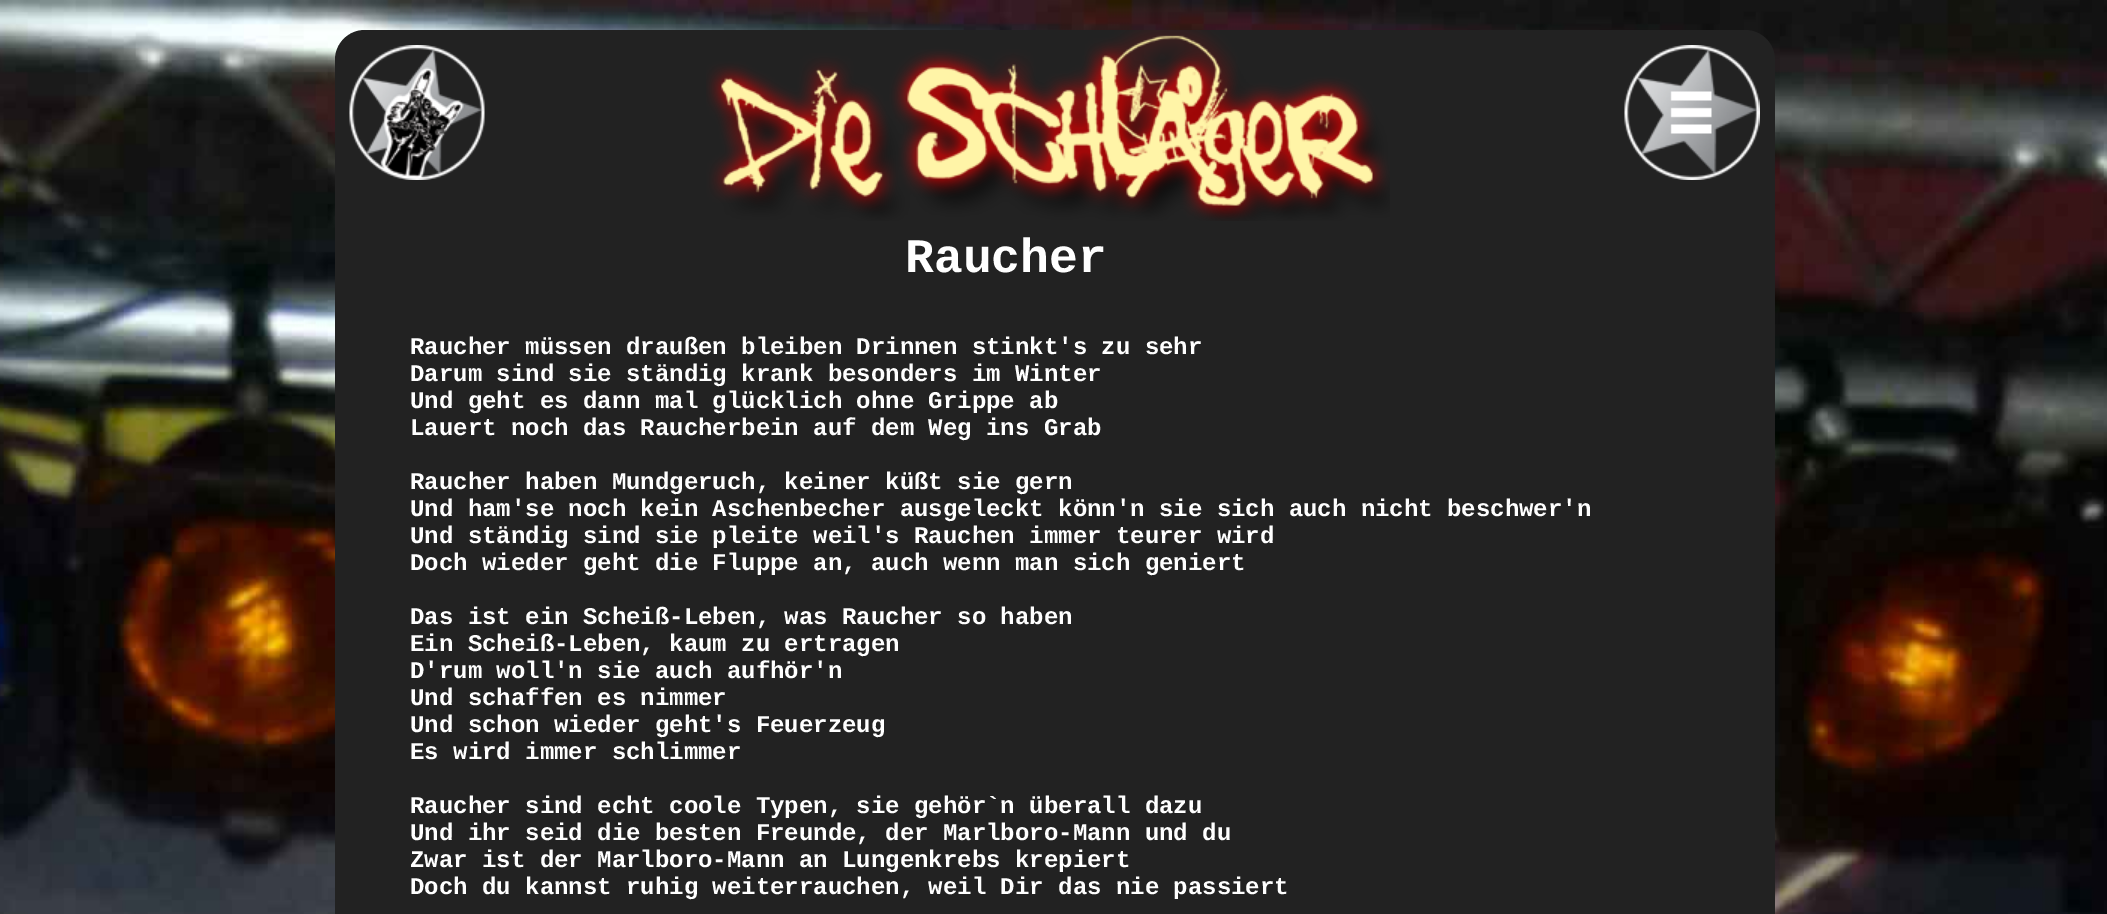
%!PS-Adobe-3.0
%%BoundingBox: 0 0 2107 914
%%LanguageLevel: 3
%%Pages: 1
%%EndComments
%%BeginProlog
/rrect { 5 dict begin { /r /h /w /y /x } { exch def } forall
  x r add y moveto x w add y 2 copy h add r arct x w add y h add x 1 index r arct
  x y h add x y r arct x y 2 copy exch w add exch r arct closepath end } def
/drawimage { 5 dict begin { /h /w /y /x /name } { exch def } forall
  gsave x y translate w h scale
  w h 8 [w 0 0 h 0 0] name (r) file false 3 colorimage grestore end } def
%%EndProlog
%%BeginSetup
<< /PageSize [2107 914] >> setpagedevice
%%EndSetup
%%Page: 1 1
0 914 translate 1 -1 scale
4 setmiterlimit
1 setgray
0 0 2107 914 rectfill
(images/1.raw) 0 0 2107 914 drawimage
0.133 setgray
335 30 1440 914 30 rrect fill
(images/2.raw) 349 45 136 135 drawimage
(images/3.raw) 706 30 684 191 drawimage
(images/4.raw) 1624 45 136 135 drawimage
/LiberationMono-Bold [48 0 0 -48 0 0] selectfont
1 setgray
905 272 moveto (Raucher) show
/LiberationMono-Bold [24 0 0 -24 0 0] selectfont
410 354 moveto (Raucher müssen draußen bleiben Drinnen stinkt's zu sehr) show
410 381 moveto (Darum sind sie ständig krank besonders im Winter) show
410 408 moveto (Und geht es dann mal glücklich ohne Grippe ab) show
410 435 moveto (Lauert noch das Raucherbein auf dem Weg ins Grab) show
410 489 moveto (Raucher haben Mundgeruch, keiner küßt sie gern) show
410 516 moveto (Und ham'se noch kein Aschenbecher ausgeleckt könn'n sie sich auch nicht beschwer'n) show
410 543 moveto (Und ständig sind sie pleite weil's Rauchen immer teurer wird) show
410 570 moveto (Doch wieder geht die Fluppe an, auch wenn man sich geniert) show
410 624 moveto (Das ist ein Scheiß-Leben, was Raucher so haben) show
410 651 moveto (Ein Scheiß-Leben, kaum zu ertragen) show
410 678 moveto (D'rum woll'n sie auch aufhör'n) show
410 705 moveto (Und schaffen es nimmer) show
410 732 moveto (Und schon wieder geht's Feuerzeug) show
410 759 moveto (Es wird immer schlimmer) show
410 813 moveto (Raucher sind echt coole Typen, sie gehör`n überall dazu) show
410 840 moveto (Und ihr seid die besten Freunde, der Marlboro-Mann und du) show
410 867 moveto (Zwar ist der Marlboro-Mann an Lungenkrebs krepiert) show
410 894 moveto (Doch du kannst ruhig weiterrauchen, weil Dir das nie passiert) show
showpage
%%EOF
